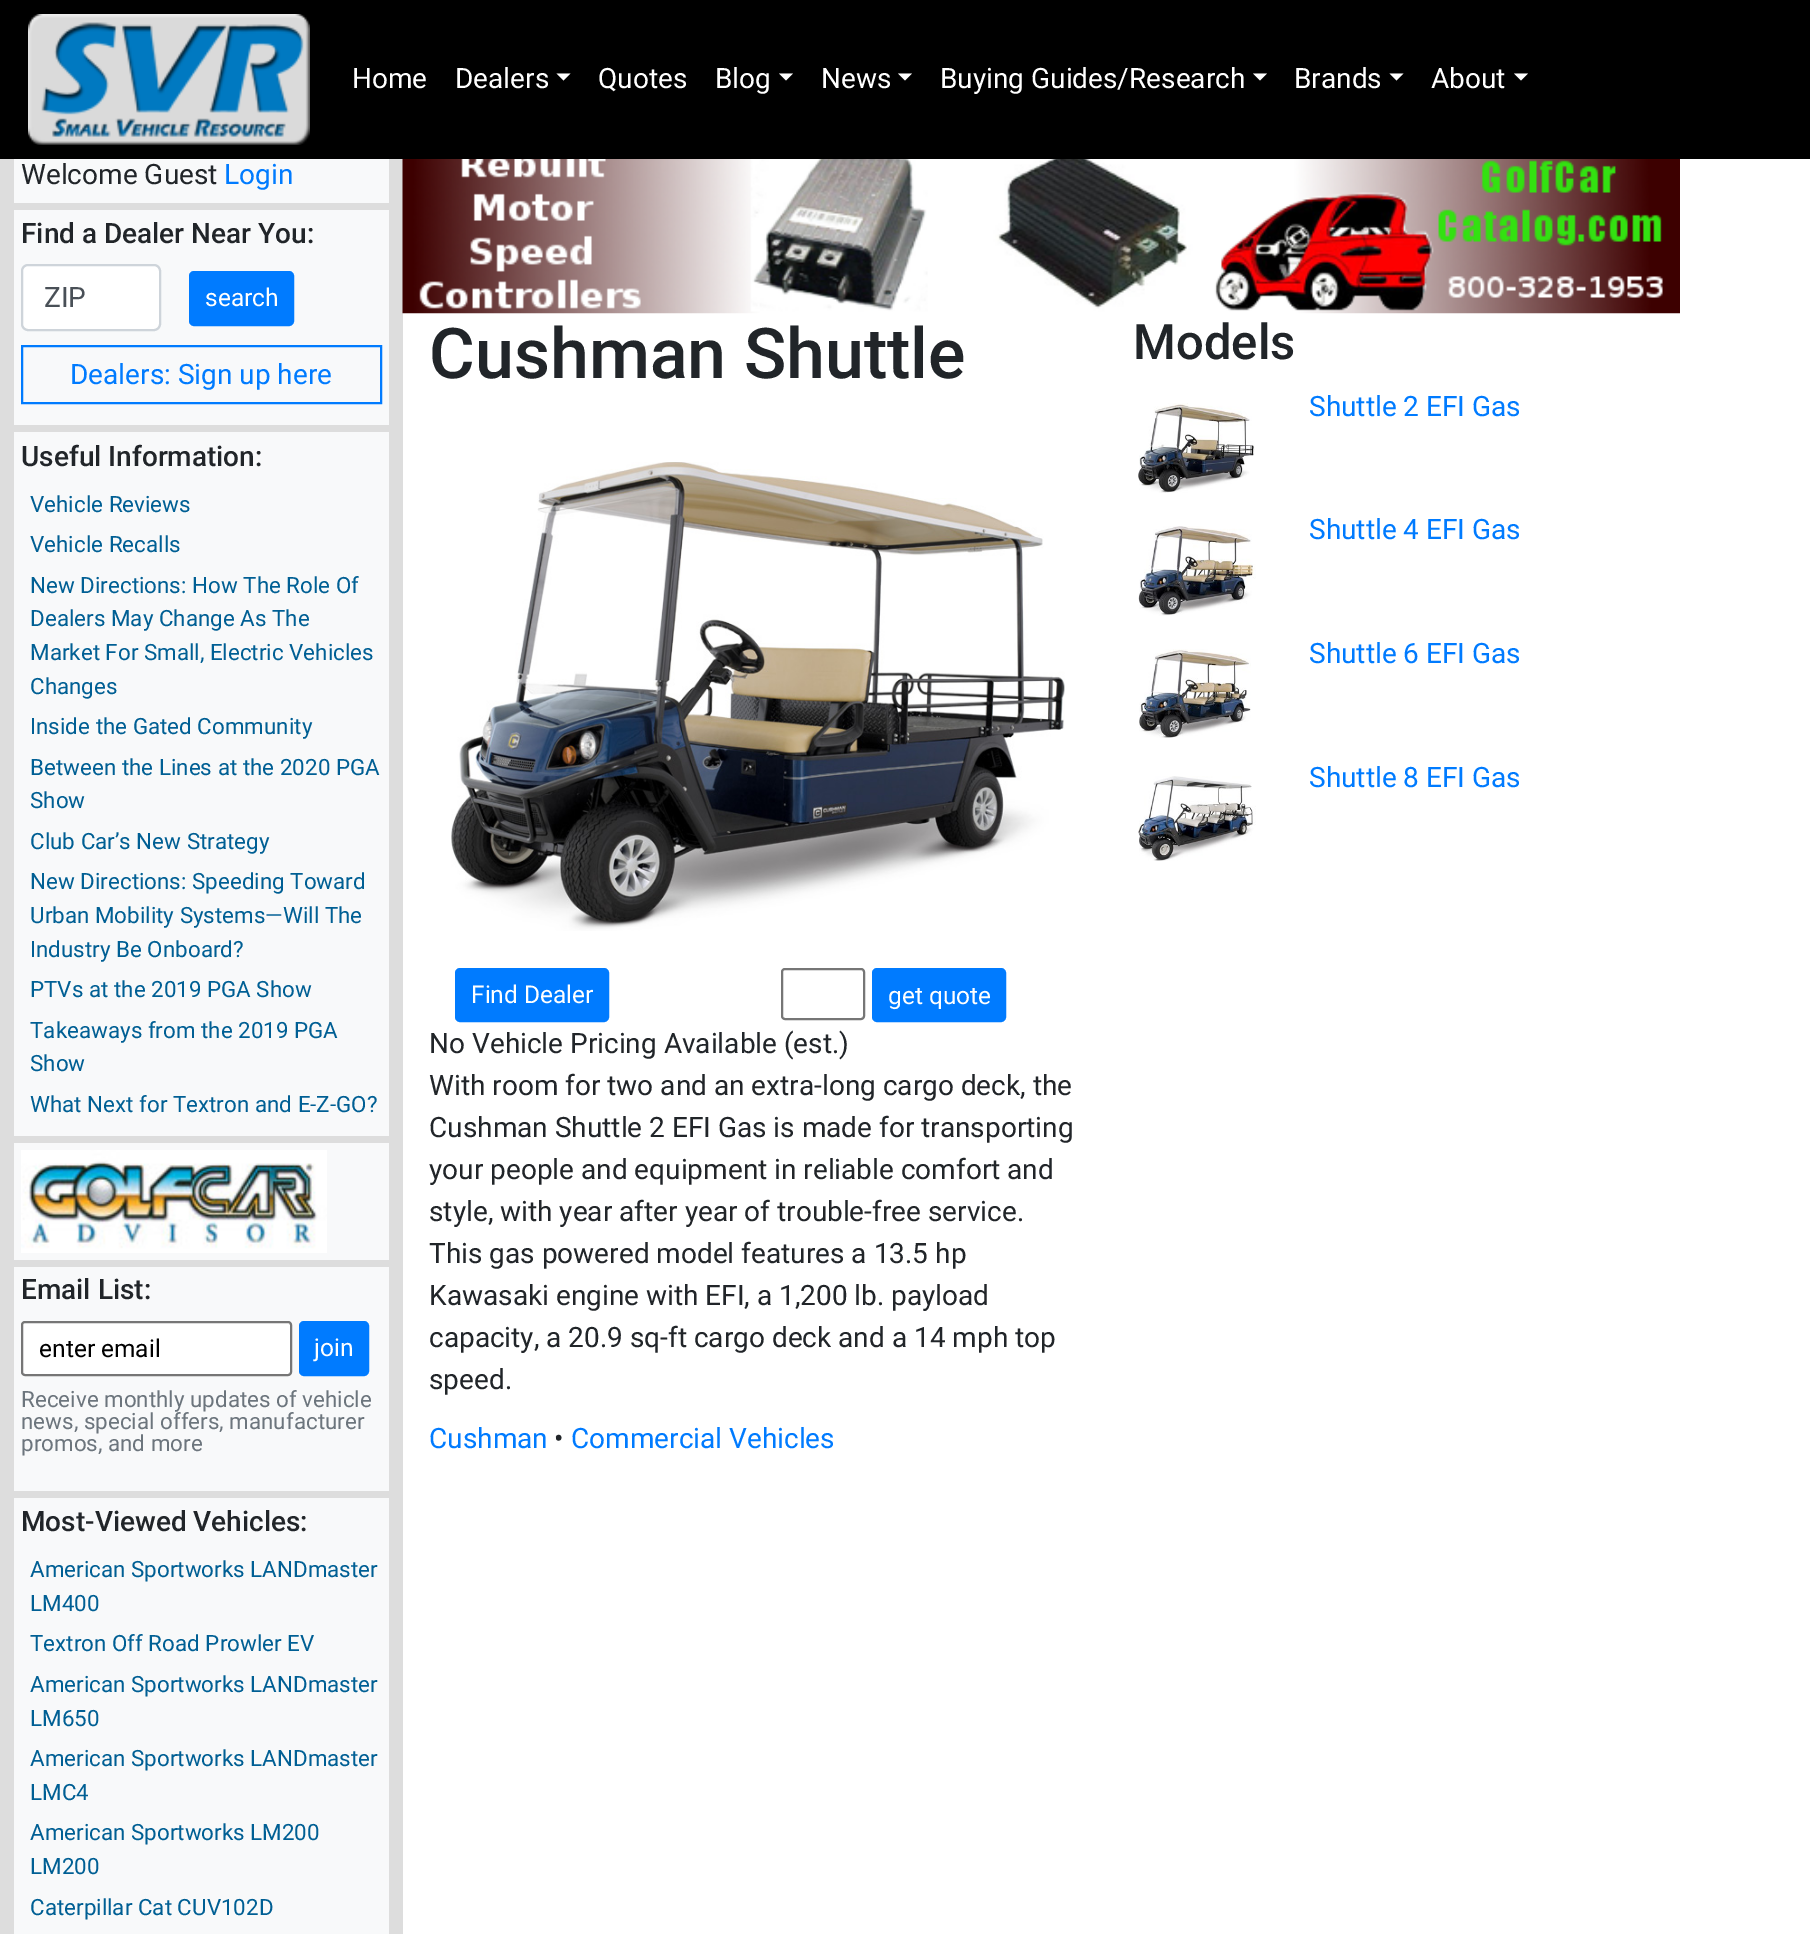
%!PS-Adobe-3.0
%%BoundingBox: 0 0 1810 1934
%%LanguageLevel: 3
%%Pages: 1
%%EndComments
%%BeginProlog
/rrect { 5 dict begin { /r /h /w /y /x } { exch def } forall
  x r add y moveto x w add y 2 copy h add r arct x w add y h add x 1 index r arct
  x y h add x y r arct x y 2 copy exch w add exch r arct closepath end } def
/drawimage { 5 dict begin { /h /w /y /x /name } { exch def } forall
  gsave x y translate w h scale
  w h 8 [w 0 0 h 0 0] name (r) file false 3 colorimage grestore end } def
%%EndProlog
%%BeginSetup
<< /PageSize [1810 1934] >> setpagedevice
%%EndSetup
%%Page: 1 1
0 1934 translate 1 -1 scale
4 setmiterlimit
1 setgray
0 0 1810 1934 rectfill
0 setgray
0 0 1810 159 rectfill
(images/1.raw) 28 14 282 131 drawimage
1 setgray
newpath 556.5 73.5 moveto 570.5 73.5 lineto 563.5 80.5 lineto closepath fill
newpath 779 73.5 moveto 793 73.5 lineto 786 80.5 lineto closepath fill
newpath 898 73.5 moveto 912 73.5 lineto 905 80.5 lineto closepath fill
newpath 1253 73.5 moveto 1267 73.5 lineto 1260 80.5 lineto closepath fill
newpath 1389.5 73.5 moveto 1403.5 73.5 lineto 1396.5 80.5 lineto closepath fill
newpath 1514 73.5 moveto 1528 73.5 lineto 1521 80.5 lineto closepath fill
0.867 setgray
0 159 403 1775 rectfill
0.973 0.976 0.98 setrgbcolor
14 159 375 44 rectfill
14 210 375 215 rectfill
1 setgray
22 265 138 65 6 rrect gsave fill grestore
0.808 0.831 0.855 setrgbcolor
2 setlinewidth
stroke
0 0.482 1 setrgbcolor
190 272 103 53 4 rrect gsave fill grestore
stroke
22 346 359 57 rectstroke
0.973 0.976 0.98 setrgbcolor
14 432 375 704 rectfill
14 1143 375 117 rectfill
(images/2.raw) 21 1150 306 103 drawimage
14 1267 375 224 rectfill
1 setgray
22 1322 269 53 3 rrect gsave fill grestore
0.463 setgray
stroke
0 0.482 1 setrgbcolor
300 1322 68 53 4 rrect gsave fill grestore
stroke
0.973 0.976 0.98 setrgbcolor
14 1498 375 436 rectfill
(images/3.raw) 402 159 1278 155 drawimage
(images/4.raw) 451 462 614 469 drawimage
0 0.482 1 setrgbcolor
456 969 152 52 4 rrect gsave fill grestore
stroke
0.463 setgray
782 969 82 50 3 rrect stroke
0 0.482 1 setrgbcolor
873 969 132 52 4 rrect gsave fill grestore
stroke
(images/5.raw) 1138 403 117 90 drawimage
(images/6.raw) 1138 526 118 90 drawimage
(images/7.raw) 1139 649 112 89 drawimage
(images/8.raw) 1138 776 118 85 drawimage
/Roboto-Regular [28 0 0 -28 0 0] selectfont
1 setgray
352 88 moveto (Home) show
455 88 moveto (Dealers) show
598 88 moveto (Quotes) show
715 88 moveto (Blog) show
821 88 moveto (News) show
940 88 moveto (Buying Guides/Research) show
1294 88 moveto (Brands) show
1431 88 moveto (About) show
0.129 0.145 0.161 setrgbcolor
21 184 moveto (Welcome Guest) show
0 0.482 1 setrgbcolor
224 184 moveto (Login) show
/Roboto-Medium [28 0 0 -28 0 0] selectfont
0.129 0.145 0.161 setrgbcolor
21 243 moveto (Find a Dealer Near You:) show
/Roboto-Regular [28 0 0 -28 0 0] selectfont
0.286 0.314 0.341 setrgbcolor
44 307 moveto (ZIP) show
/Roboto-Regular [24.5 0 0 -24.5 0 0] selectfont
1 setgray
205 306 moveto (search) show
/Roboto-Regular [28 0 0 -28 0 0] selectfont
0 0.482 1 setrgbcolor
70 384 moveto (Dealers: Sign up here) show
/Roboto-Medium [28 0 0 -28 0 0] selectfont
0.129 0.145 0.161 setrgbcolor
21 466 moveto (Useful Information:) show
/Roboto-Regular [22.4 0 0 -22.4 0 0] selectfont
0 0.373 0.58 setrgbcolor
30 512 moveto (Vehicle Reviews) show
30 552 moveto (Vehicle Recalls) show
30 593 moveto (New Directions: How The Role Of) show
30 626 moveto (Dealers May Change As The) show
30 660 moveto (Market For Small, Electric Vehicles) show
30 694 moveto (Changes) show
30 734 moveto (Inside the Gated Community) show
30 775 moveto (Between the Lines at the 2020 PGA) show
30 808 moveto (Show) show
30 849 moveto (Club Car’s New Strategy) show
30 889 moveto (New Directions: Speeding Toward) show
30 923 moveto (Urban Mobility Systems—Will The) show
30 957 moveto (Industry Be Onboard?) show
30 997 moveto (PTVs at the 2019 PGA Show) show
30 1038 moveto (Takeaways from the 2019 PGA) show
30 1071 moveto (Show) show
30 1112 moveto (What Next for Textron and E-Z-GO?) show
/Roboto-Medium [28 0 0 -28 0 0] selectfont
0.129 0.145 0.161 setrgbcolor
21 1299 moveto (Email List:) show
/Roboto-Regular [24.5 0 0 -24.5 0 0] selectfont
0 setgray
39 1357 moveto (enter email) show
1 setgray
314 1356 moveto (join) show
/Roboto-Regular [22.4 0 0 -22.4 0 0] selectfont
0.424 0.459 0.49 setrgbcolor
21 1407 moveto (Receive monthly updates of vehicle) show
21 1429 moveto (news, special offers, manufacturer) show
21 1451 moveto (promos, and more) show
/Roboto-Medium [28 0 0 -28 0 0] selectfont
0.129 0.145 0.161 setrgbcolor
21 1531 moveto (Most-Viewed Vehicles:) show
/Roboto-Regular [22.4 0 0 -22.4 0 0] selectfont
0 0.373 0.58 setrgbcolor
30 1577 moveto (American Sportworks LANDmaster) show
30 1611 moveto (LM400) show
30 1651 moveto (Textron Off Road Prowler EV) show
30 1692 moveto (American Sportworks LANDmaster) show
30 1726 moveto (LM650) show
30 1766 moveto (American Sportworks LANDmaster) show
30 1800 moveto (LMC4) show
30 1840 moveto (American Sportworks LM200) show
30 1874 moveto (LM200) show
30 1915 moveto (Caterpillar Cat CUV102D) show
/Roboto-Medium [70 0 0 -70 0 0] selectfont
0.129 0.145 0.161 setrgbcolor
429 378 moveto (Cushman Shuttle) show
/Roboto-Regular [24.5 0 0 -24.5 0 0] selectfont
1 setgray
471 1003 moveto (Find Dealer) show
888 1004 moveto (get quote) show
/Roboto-Regular [28 0 0 -28 0 0] selectfont
0.129 0.145 0.161 setrgbcolor
429 1053 moveto (No Vehicle Pricing Available \(est.\)) show
429 1095 moveto (With room for two and an extra-long cargo deck, the) show
429 1137 moveto (Cushman Shuttle 2 EFI Gas is made for transporting) show
429 1179 moveto (your people and equipment in reliable comfort and) show
429 1221 moveto (style, with year after year of trouble-free service.) show
429 1263 moveto (This gas powered model features a 13.5 hp) show
429 1305 moveto (Kawasaki engine with EFI, a 1,200 lb. payload) show
429 1347 moveto (capacity, a 20.9 sq-ft cargo deck and a 14 mph top) show
429 1389 moveto (speed.) show
0 0.482 1 setrgbcolor
429 1448 moveto (Cushman) show
0.129 0.145 0.161 setrgbcolor
554 1448 moveto (•) show
0 0.482 1 setrgbcolor
571 1448 moveto (Commercial Vehicles) show
/Roboto-Medium [49 0 0 -49 0 0] selectfont
0.129 0.145 0.161 setrgbcolor
1133 359 moveto (Models) show
/Roboto-Regular [28 0 0 -28 0 0] selectfont
0 0.482 1 setrgbcolor
1309 416 moveto (Shuttle 2 EFI Gas) show
1309 539 moveto (Shuttle 4 EFI Gas) show
1309 663 moveto (Shuttle 6 EFI Gas) show
1309 787 moveto (Shuttle 8 EFI Gas) show
showpage
%%EOF
